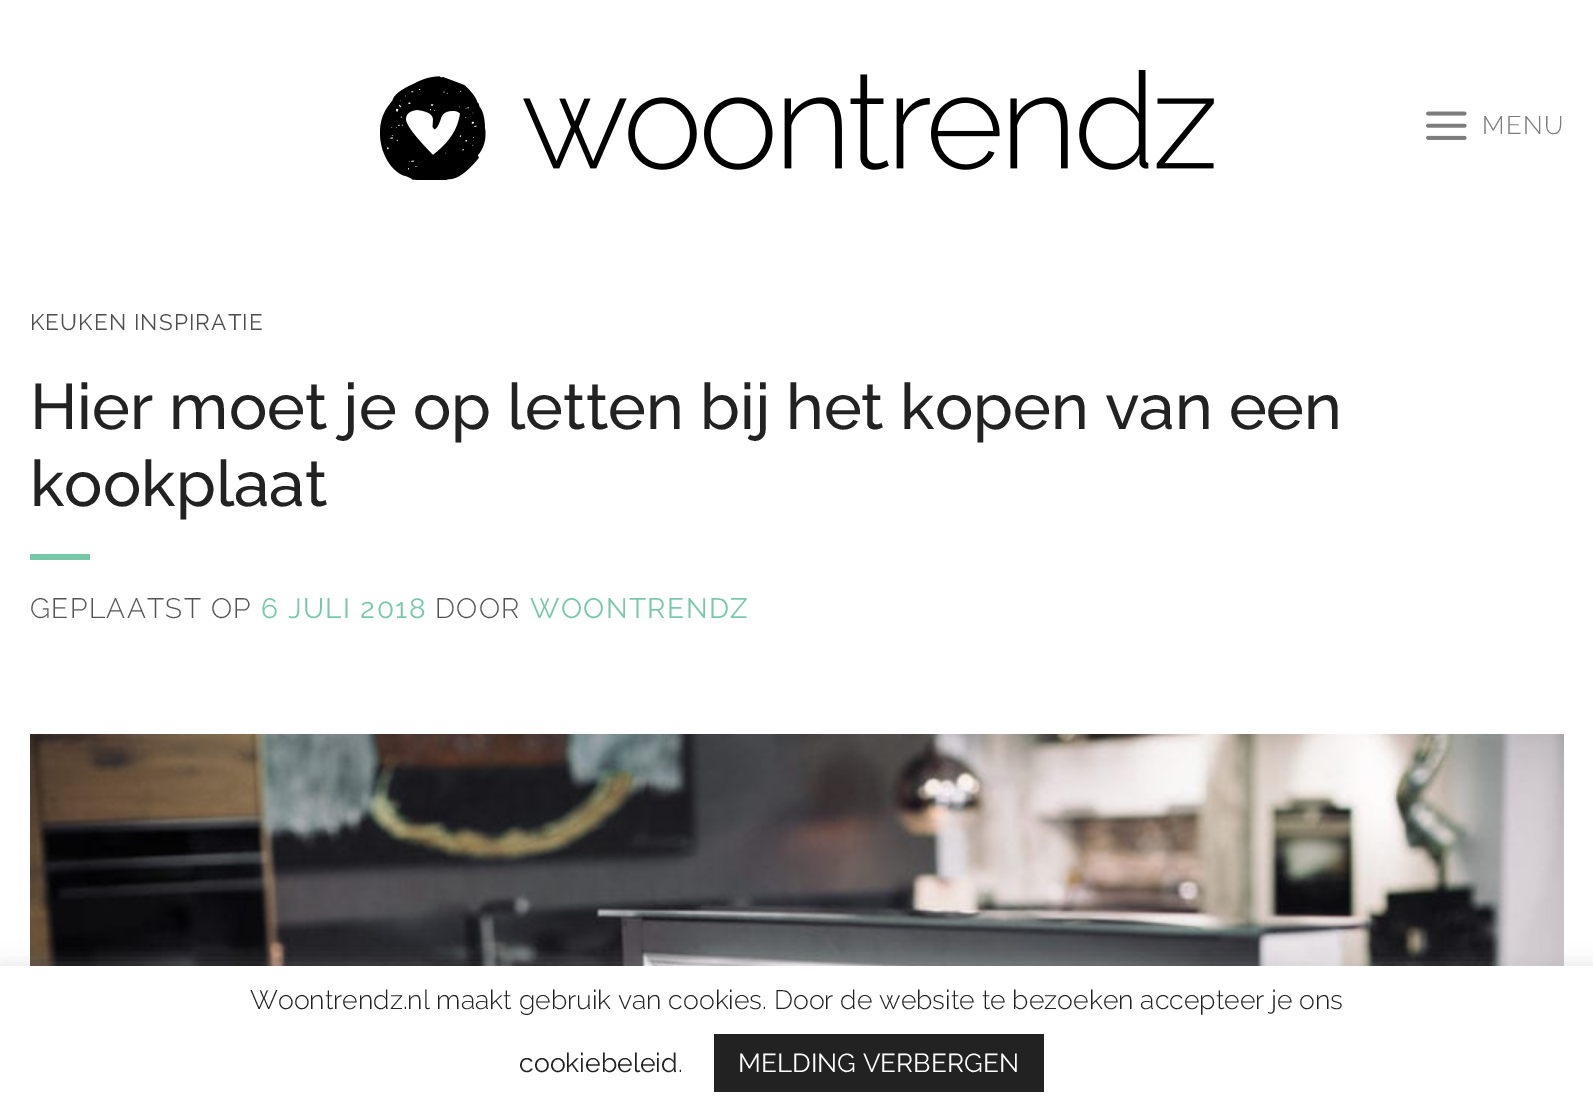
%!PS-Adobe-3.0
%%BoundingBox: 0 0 1593 1115
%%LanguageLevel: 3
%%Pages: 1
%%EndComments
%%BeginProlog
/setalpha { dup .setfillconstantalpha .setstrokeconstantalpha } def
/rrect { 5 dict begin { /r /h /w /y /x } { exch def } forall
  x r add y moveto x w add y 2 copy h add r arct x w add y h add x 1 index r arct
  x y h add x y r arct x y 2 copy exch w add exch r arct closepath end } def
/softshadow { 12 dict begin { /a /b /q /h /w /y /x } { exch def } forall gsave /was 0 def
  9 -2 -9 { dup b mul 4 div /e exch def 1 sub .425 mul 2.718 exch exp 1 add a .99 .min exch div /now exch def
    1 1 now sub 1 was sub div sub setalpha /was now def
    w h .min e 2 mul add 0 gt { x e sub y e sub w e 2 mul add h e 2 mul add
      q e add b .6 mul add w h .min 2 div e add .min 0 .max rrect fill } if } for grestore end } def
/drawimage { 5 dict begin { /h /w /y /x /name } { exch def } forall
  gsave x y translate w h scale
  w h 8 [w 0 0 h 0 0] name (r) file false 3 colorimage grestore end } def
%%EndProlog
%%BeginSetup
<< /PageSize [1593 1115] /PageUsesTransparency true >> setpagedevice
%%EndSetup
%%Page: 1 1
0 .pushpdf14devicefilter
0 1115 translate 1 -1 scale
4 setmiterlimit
1 setgray
0 0 1593 1115 rectfill
(images/1.raw) 380 70 834 110 drawimage
(images/2.raw) 1426 111 41 29 drawimage
0.467 0.784 0.659 setrgbcolor
30 554 60 6 rectfill
(images/3.raw) 30 734 1534 232 drawimage
0.675 0.671 0.671 setrgbcolor
0 964 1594 150 0 10 0.3 softshadow
1 setgray
0 966 1593 149 rectfill
0.133 setgray
714 1034 330 58 rectfill
/Raleway-Light [25.5 0 0 -25.5 0 0] selectfont
0.49 setgray
1482 134 moveto 1.5 0 (MENU) ashow
/Raleway-Regular [22.4 0 0 -22.4 0 0] selectfont
0.306 setgray
30 330 moveto 1.1 0 (KEUKEN INSPIRATIE) ashow
/Raleway-Medium [64 0 0 -64 0 0] selectfont
0.133 setgray
30 429 moveto (Hier moet je op letten bij het kopen van een) show
30 506 moveto (kookplaat) show
/Raleway-Light [28 0 0 -28 0 0] selectfont
0.333 setgray
30 618 moveto 1.4 0 (GEPLAATST OP) ashow
/Raleway-Regular [28 0 0 -28 0 0] selectfont
0.467 0.784 0.659 setrgbcolor
261 618 moveto 1.4 0 (6 JULI 2018) ashow
/Raleway-Light [28 0 0 -28 0 0] selectfont
0.333 setgray
435 618 moveto 1.4 0 (DOOR) ashow
/Raleway-Regular [28 0 0 -28 0 0] selectfont
0.467 0.784 0.659 setrgbcolor
530 618 moveto 1.4 0 (WOONTRENDZ) ashow
/Raleway-Light [26.65 0 0 -26.65 0 0] selectfont
0.133 setgray
250 1009 moveto (Woontrendz.nl maakt gebruik van cookies. Door de website te bezoeken accepteer je ons) show
/Raleway-Regular [26.65 0 0 -26.65 0 0] selectfont
519 1072 moveto (cookiebeleid) show
/Raleway-Light [26.65 0 0 -26.65 0 0] selectfont
678 1072 moveto (.) show
/Raleway-Regular [26 0 0 -26 0 0] selectfont
1 setgray
738 1072 moveto (MELDING VERBERGEN) show
.poppdf14devicefilter showpage
%%EOF
